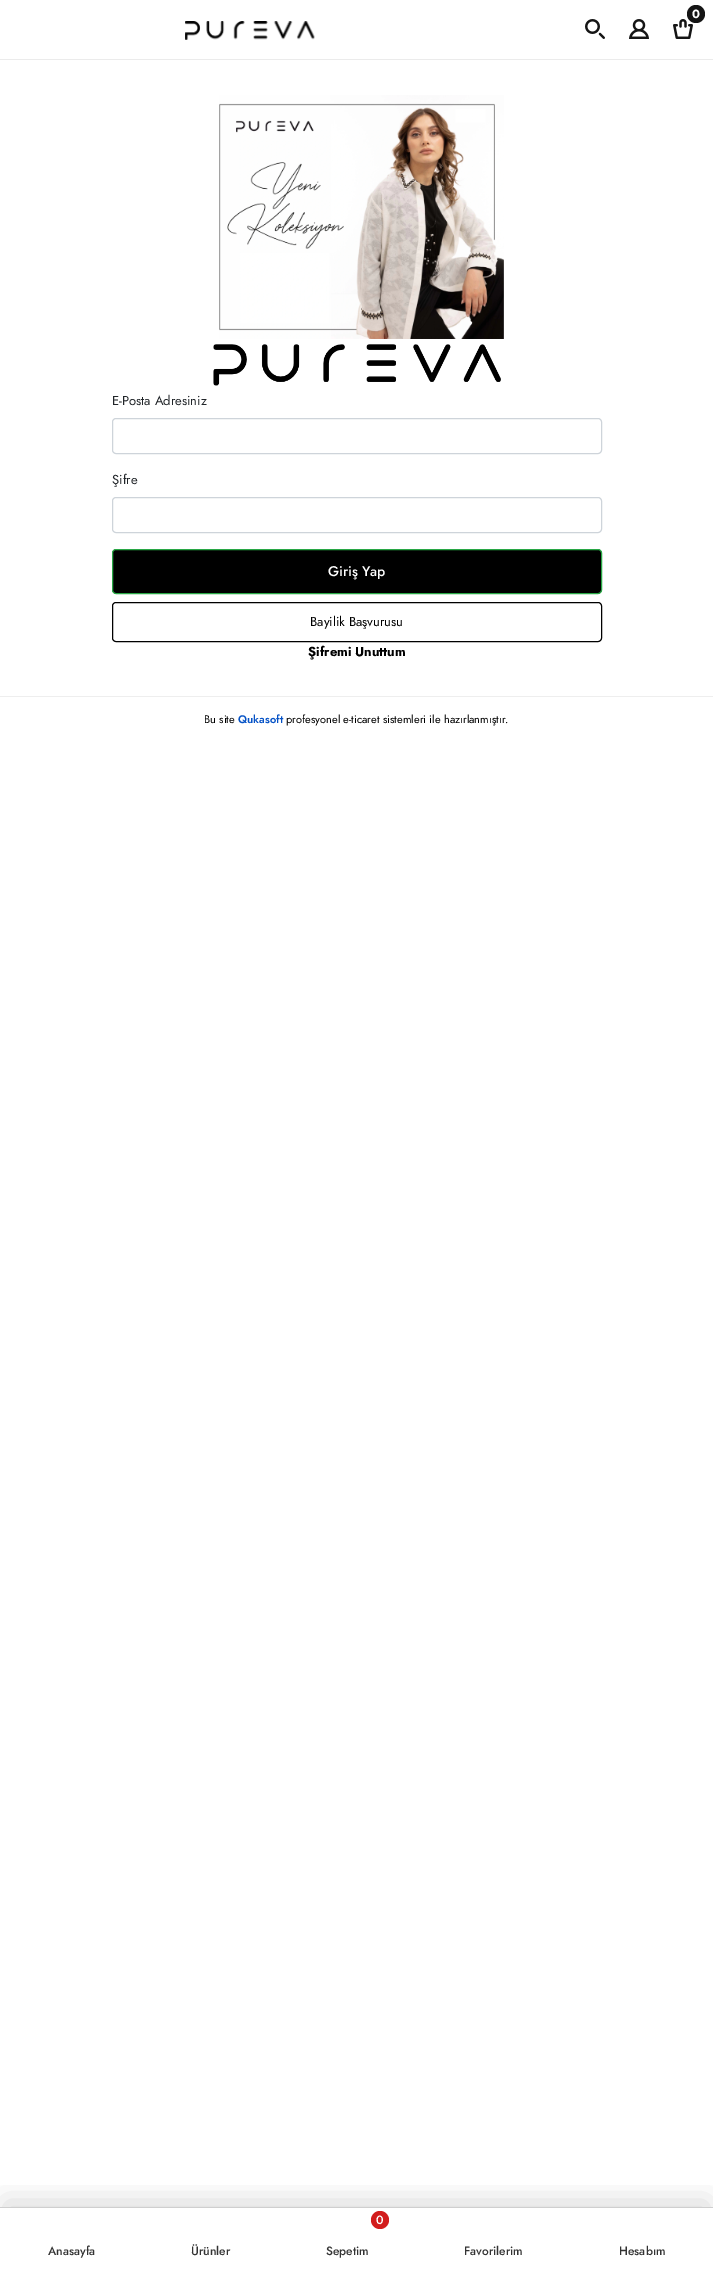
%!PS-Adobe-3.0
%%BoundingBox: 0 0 713 2272
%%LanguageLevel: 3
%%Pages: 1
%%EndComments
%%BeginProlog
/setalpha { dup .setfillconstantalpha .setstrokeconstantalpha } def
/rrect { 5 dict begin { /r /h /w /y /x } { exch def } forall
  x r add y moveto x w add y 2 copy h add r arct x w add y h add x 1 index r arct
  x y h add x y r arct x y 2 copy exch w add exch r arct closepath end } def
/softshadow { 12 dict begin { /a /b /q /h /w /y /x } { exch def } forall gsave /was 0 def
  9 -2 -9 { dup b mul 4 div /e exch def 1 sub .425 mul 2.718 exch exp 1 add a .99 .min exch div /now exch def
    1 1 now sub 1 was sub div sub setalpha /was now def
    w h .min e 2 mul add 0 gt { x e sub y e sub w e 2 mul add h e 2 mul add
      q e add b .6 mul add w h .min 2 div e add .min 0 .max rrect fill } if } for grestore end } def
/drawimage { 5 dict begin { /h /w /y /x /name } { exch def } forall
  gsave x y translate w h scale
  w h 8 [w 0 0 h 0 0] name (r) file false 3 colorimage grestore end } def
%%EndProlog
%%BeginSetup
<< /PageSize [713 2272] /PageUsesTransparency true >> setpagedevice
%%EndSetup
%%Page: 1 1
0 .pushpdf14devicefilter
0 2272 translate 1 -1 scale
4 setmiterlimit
1 setgray
0 0 713 2272 rectfill
0.922 setgray
0 59 713 1 rectfill
(images/1.raw) 673 19 20 20 drawimage
0.082 setgray
newpath 696 14 9 0 360 arc closepath fill
(images/2.raw) 585 19 20 20 drawimage
(images/3.raw) 629 19 20 20 drawimage
(images/4.raw) 185 21 130 19 drawimage
(images/5.raw) 219 95 285 244 drawimage
(images/6.raw) 213 344 288 42 drawimage
0.808 0.831 0.855 setrgbcolor
112.5 418.5 489 35 3.5 rrect stroke
112.5 497.5 489 35 3.5 rrect stroke
0 setgray
112.5 549.5 489 44 3.5 rrect gsave fill grestore
0.157 0.655 0.271 setrgbcolor
stroke
0 setgray
112.5 602.5 489 39 3.5 rrect stroke
0.933 setgray
0 696 713 1 rectfill
gsave
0 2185 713 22 rectclip
0 setgray
5 2202 703 55 0 15 0.15 softshadow
grestore
0.812 setgray
0 2207 713 1 rectfill
0.824 0.11 0.11 setrgbcolor
newpath 380 2220 9 0 360 arc closepath fill
/Jost-Bold [12 0 0 -12 0 0] selectfont
1 setgray
692 18 moveto (0) show
/Jost-Regular [13 0 0 -13 0 0] selectfont
0.129 0.145 0.161 setrgbcolor
112 405 moveto (E-Posta Adresiniz) show
112 484 moveto (Şifre) show
/Jost-Medium [14 0 0 -14 0 0] selectfont
1 setgray
328 576 moveto (Giriş Yap) show
/Jost-Regular [13 0 0 -13 0 0] selectfont
0 setgray
310 626 moveto (Bayilik Başvurusu) show
/Jost-Bold [13 0 0 -13 0 0] selectfont
308 656 moveto (Şifremi Unuttum) show
/Jost-Regular [11 0 0 -11 0 0] selectfont
204 723 moveto (Bu site) show
/Jost-SemiBold [11 0 0 -11 0 0] selectfont
0.02 0.322 0.776 setrgbcolor
238 723 moveto (Qukasoft) show
/Jost-Regular [11 0 0 -11 0 0] selectfont
0 setgray
286 723 moveto (profesyonel e-ticaret sistemleri ile hazırlanmıştır.) show
/Jost-Medium [12 0 0 -12 0 0] selectfont
0.2 setgray
48 2255 moveto (Anasayfa) show
191 2255 moveto (Ürünler) show
1 setgray
376 2224 moveto (0) show
0.2 setgray
326 2255 moveto (Sepetim) show
464 2255 moveto (Favorilerim) show
619 2255 moveto (Hesabım) show
.poppdf14devicefilter showpage
%%EOF
